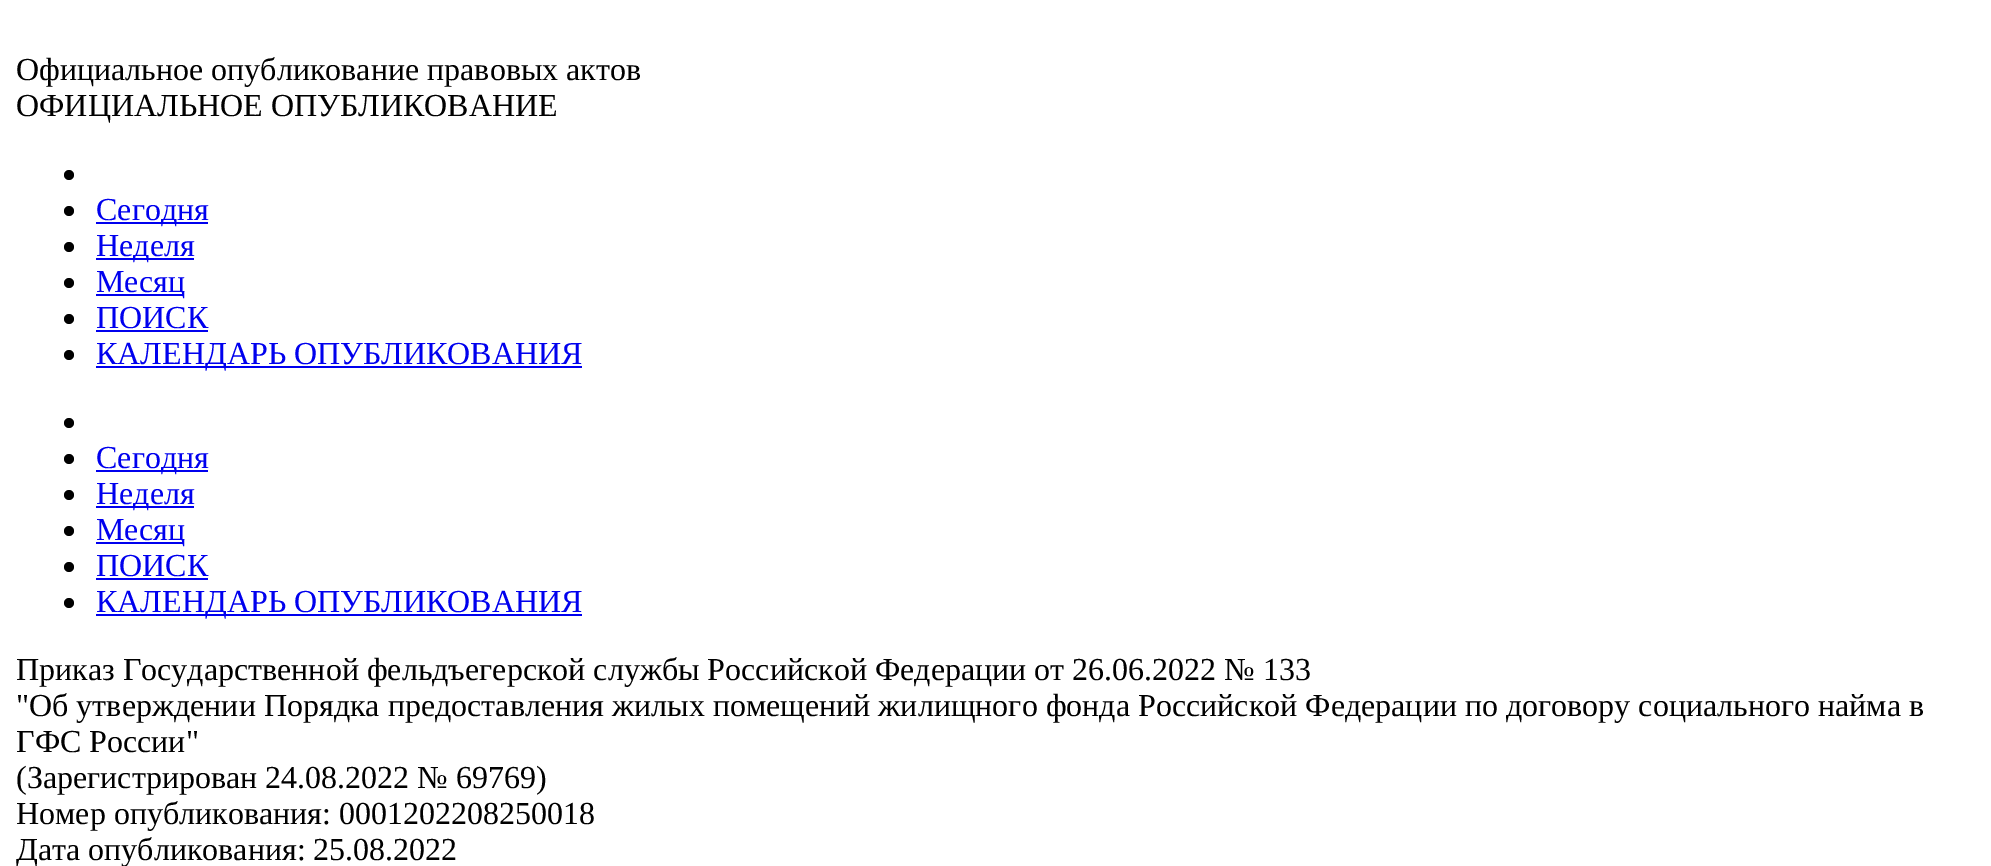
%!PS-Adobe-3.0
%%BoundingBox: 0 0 1991 866
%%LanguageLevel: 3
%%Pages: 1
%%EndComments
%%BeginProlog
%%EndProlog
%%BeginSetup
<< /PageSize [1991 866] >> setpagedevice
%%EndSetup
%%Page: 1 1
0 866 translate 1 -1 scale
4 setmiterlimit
1 setgray
0 0 1991 866 rectfill
0 setgray
newpath 69 175 5 0 360 arc closepath fill
newpath 69 211 5 0 360 arc closepath fill
0 0 0.933 setrgbcolor
96 222 112 2 rectfill
0 setgray
newpath 69 247 5 0 360 arc closepath fill
0 0 0.933 setrgbcolor
96 258 98 2 rectfill
0 setgray
newpath 69 283 5 0 360 arc closepath fill
0 0 0.933 setrgbcolor
96 294 88 2 rectfill
0 setgray
newpath 69 319 5 0 360 arc closepath fill
0 0 0.933 setrgbcolor
96 330 112 2 rectfill
0 setgray
newpath 69 355 5 0 360 arc closepath fill
0 0 0.933 setrgbcolor
96 366 486 2 rectfill
0 setgray
newpath 69 423 5 0 360 arc closepath fill
newpath 69 459 5 0 360 arc closepath fill
0 0 0.933 setrgbcolor
96 470 112 2 rectfill
0 setgray
newpath 69 495 5 0 360 arc closepath fill
0 0 0.933 setrgbcolor
96 506 98 2 rectfill
0 setgray
newpath 69 531 5 0 360 arc closepath fill
0 0 0.933 setrgbcolor
96 542 88 2 rectfill
0 setgray
newpath 69 567 5 0 360 arc closepath fill
0 0 0.933 setrgbcolor
96 578 112 2 rectfill
0 setgray
newpath 69 603 5 0 360 arc closepath fill
0 0 0.933 setrgbcolor
96 614 486 2 rectfill
/LiberationSerif-Regular [32 0 0 -32 0 0] selectfont
0 setgray
16 80 moveto (Официальное опубликование правовых актов) show
16 116 moveto (ОФИЦИАЛЬНОЕ ОПУБЛИКОВАНИЕ) show
0 0 0.933 setrgbcolor
96 220 moveto (Сегодня) show
96 256 moveto (Неделя) show
96 292 moveto (Месяц) show
96 328 moveto (ПОИСК) show
96 364 moveto (КАЛЕНДАРЬ ОПУБЛИКОВАНИЯ) show
96 468 moveto (Сегодня) show
96 504 moveto (Неделя) show
96 540 moveto (Месяц) show
96 576 moveto (ПОИСК) show
96 612 moveto (КАЛЕНДАРЬ ОПУБЛИКОВАНИЯ) show
0 setgray
16 680 moveto (Приказ Государственной фельдъегерской службы Российской Федерации от 26.06.2022 № 133) show
16 716 moveto ("Об утверждении Порядка предоставления жилых помещений жилищного фонда Российской Федерации по договору социального найма в) show
16 752 moveto (ГФС России") show
16 788 moveto (\(Зарегистрирован 24.08.2022 № 69769\)) show
16 824 moveto (Номер опубликования: 0001202208250018) show
16 860 moveto (Дата опубликования: 25.08.2022) show
showpage
%%EOF
